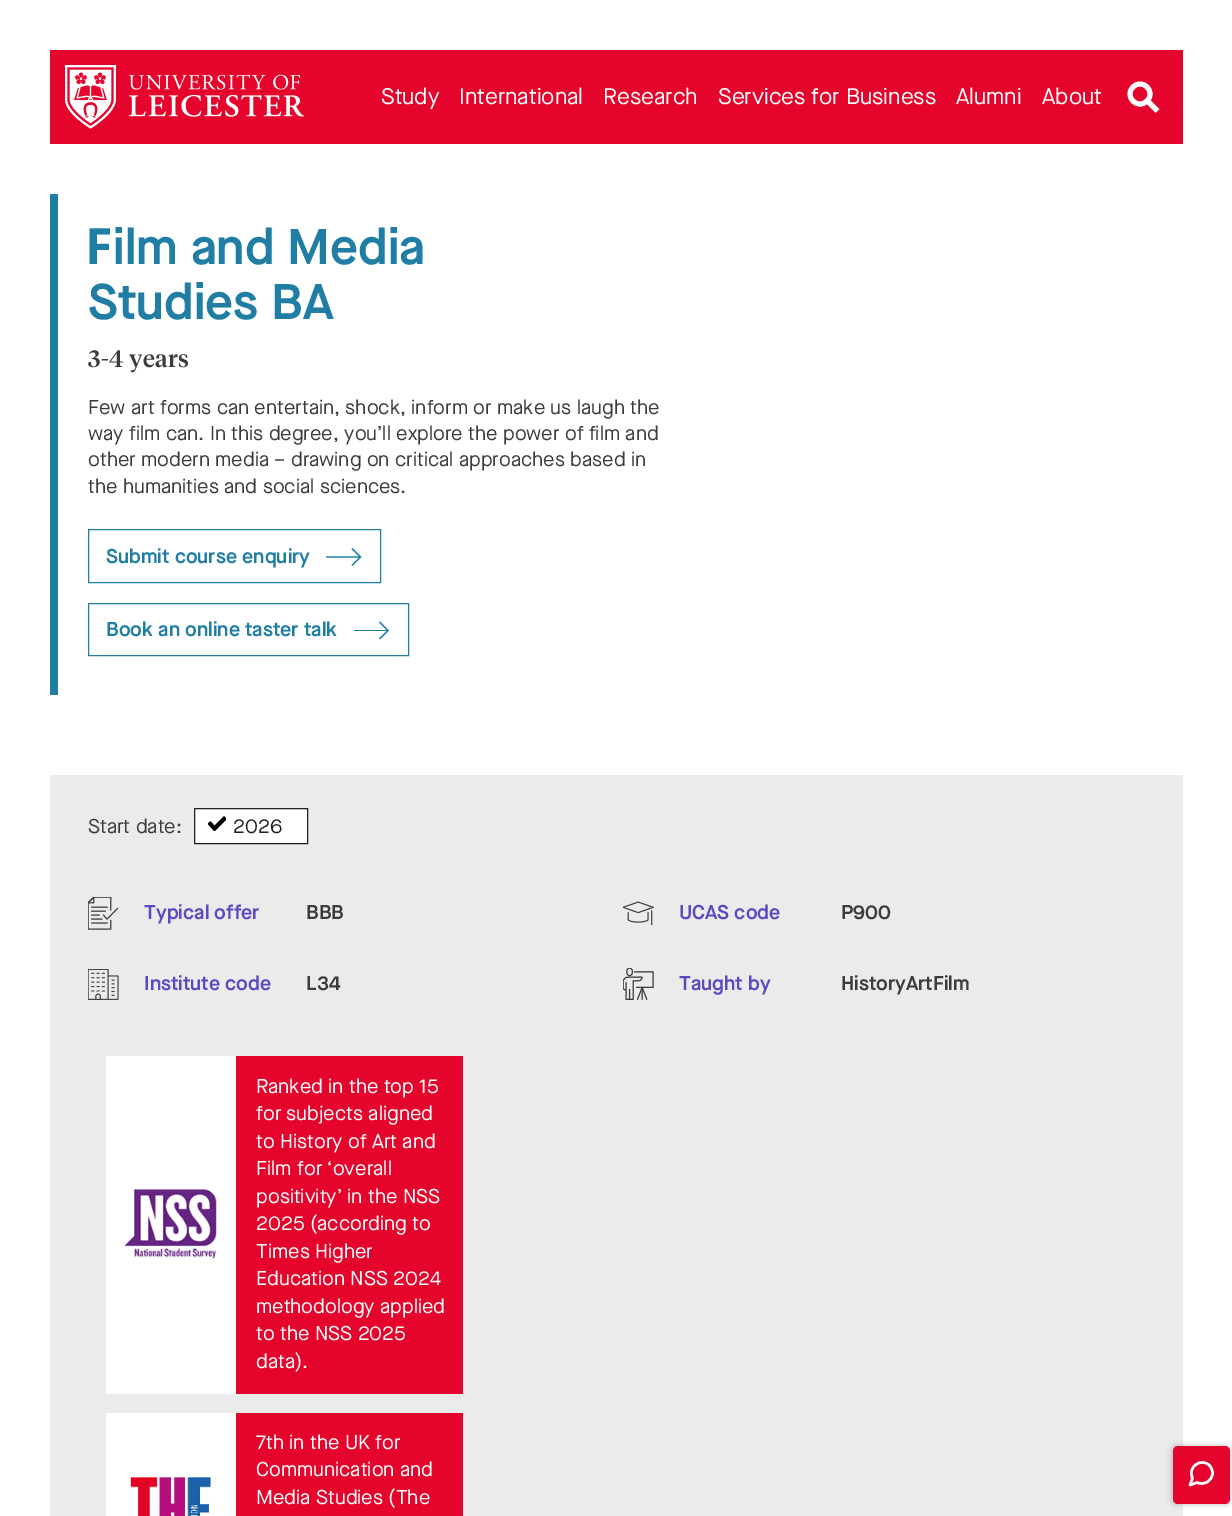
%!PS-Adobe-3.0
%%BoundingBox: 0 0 1232 1516
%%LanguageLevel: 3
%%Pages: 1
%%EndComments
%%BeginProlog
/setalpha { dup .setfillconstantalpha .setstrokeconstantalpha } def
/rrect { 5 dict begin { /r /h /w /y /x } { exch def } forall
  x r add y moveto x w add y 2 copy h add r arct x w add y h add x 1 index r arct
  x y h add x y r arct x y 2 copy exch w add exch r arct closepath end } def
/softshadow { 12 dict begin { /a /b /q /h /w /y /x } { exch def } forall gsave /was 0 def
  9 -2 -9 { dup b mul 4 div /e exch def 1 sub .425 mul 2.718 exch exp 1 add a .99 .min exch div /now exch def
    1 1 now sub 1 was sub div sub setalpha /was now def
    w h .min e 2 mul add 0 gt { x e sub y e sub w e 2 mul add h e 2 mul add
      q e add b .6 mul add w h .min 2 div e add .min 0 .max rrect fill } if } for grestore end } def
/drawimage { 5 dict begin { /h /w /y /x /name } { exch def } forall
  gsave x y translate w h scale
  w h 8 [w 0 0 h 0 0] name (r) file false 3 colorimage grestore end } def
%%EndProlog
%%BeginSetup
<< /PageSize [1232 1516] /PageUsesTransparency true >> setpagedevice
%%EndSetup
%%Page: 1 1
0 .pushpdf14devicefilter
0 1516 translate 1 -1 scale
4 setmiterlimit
1 setgray
0 0 1232 1516 rectfill
0.894 0.016 0.173 setrgbcolor
50 50 1133 94 rectfill
(images/1.raw) 65 65 239 64 drawimage
1 setgray
5 setlinewidth
newpath 1147.5 101 moveto 1157.5 111 lineto stroke
newpath 1140 94 10 0 360 arc closepath stroke
0.125 0.494 0.643 setrgbcolor
50 194 8 501 rectfill
1 setlinewidth
88.5 529.5 292 53 rectstroke
1.2 setlinewidth
newpath 352 548.5 moveto 360.5 557 lineto 352 565.5 lineto 326 557 moveto 360 557 lineto stroke
1 setlinewidth
88.5 603.5 320 52 rectstroke
1.2 setlinewidth
newpath 379.5 622 moveto 388 630.5 lineto 379.5 639 lineto stroke
354 630 34 1 rectfill
0.922 setgray
50 775 1133 741 rectfill
1 setgray
newpath 194.5 808.5 moveto 307.5 808.5 lineto 307.5 843.5 lineto 194.5 843.5 lineto closepath gsave fill grestore
0.137 0.122 0.125 setrgbcolor
1 setlinewidth
stroke
gsave
208 816 18 15 rectclip
0 setgray
3.9 setlinewidth
newpath 225.5 817.5 moveto 214.5 828.5 lineto 209 822.5 lineto stroke
grestore
(images/2.raw) 88 897 30 33 drawimage
(images/3.raw) 623 901 31 24 drawimage
(images/4.raw) 88 969 31 31 drawimage
(images/5.raw) 623 968 31 32 drawimage
1 setgray
106 1056 130 338 rectfill
(images/6.raw) 125 1189 92 70 drawimage
0.894 0.016 0.173 setrgbcolor
236 1056 227 338 rectfill
1 setgray
106 1413 130 103 rectfill
(images/7.raw) 130 1477 81 39 drawimage
0.894 0.016 0.173 setrgbcolor
236 1413 227 103 rectfill
0.086 0.106 0.133 setrgbcolor
1171 1445 60 60 6 2.5 0.2 softshadow
0.894 0.016 0.173 setrgbcolor
1173 1446 57 58 5 rrect fill
1 setgray
2.5 setlinewidth
1 setlinecap
1 setlinejoin
newpath 1212.5 1473 moveto 1212.5 1481 1204 1486 1197 1482.5 curveto 1190 1485 lineto 1192.5 1478 lineto 1187 1467.5 1201 1457 1209.5 1465.5 curveto 1211.5 1467.5 1212.5 1470.5 1212.5 1473 curveto closepath stroke
/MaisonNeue-Regular [22.5 0 0 -22.5 0 0] selectfont
381 104 moveto (Study) show
459 104 moveto (International) show
603 104 moveto (Research) show
718 104 moveto (Services for Business) show
956 104 moveto (Alumni) show
1042 104 moveto (About) show
/NotoSans-Bold [50 0 0 -50 0 0] selectfont
0.125 0.494 0.643 setrgbcolor
85 264 moveto (F) show
/MaisonNeue-SemiBold [50 0 0 -50 0 0] selectfont
113 264 moveto (ilm and Media) show
88 319 moveto (Studies BA) show
/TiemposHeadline-Medium [23.75 0 0 -23.75 0 0] selectfont
0.235 setgray
88 367 moveto 0.5 0 (3-4 years) ashow
/MaisonNeue-Regular [20 0 0 -20 0 0] selectfont
88 414 moveto (Few art forms can entertain, shock, inform or make us laugh the) show
88 440 moveto (way film can. In this degree, you’ll explore the power of film and) show
88 466 moveto (other modern media – drawing on critical approaches based in) show
88 493 moveto (the humanities and social sciences.) show
/MaisonNeue-SemiBold [20 0 0 -20 0 0] selectfont
0.125 0.494 0.643 setrgbcolor
106 563 moveto (Submit course enquiry) show
106 636 moveto (Book an online taster talk) show
/MaisonNeue-Regular [20 0 0 -20 0 0] selectfont
0.235 setgray
88 833 moveto (Start date:) show
0.137 0.122 0.125 setrgbcolor
233 833 moveto (2026) show
/MaisonNeue-SemiBold [20 0 0 -20 0 0] selectfont
0.353 0.294 0.761 setrgbcolor
144 919 moveto (Typical offer) show
0.235 setgray
306 919 moveto (BBB) show
0.353 0.294 0.761 setrgbcolor
679 919 moveto (UCAS code) show
0.235 setgray
841 919 moveto (P900) show
0.353 0.294 0.761 setrgbcolor
144 990 moveto (Institute code) show
0.235 setgray
306 990 moveto (L34) show
0.353 0.294 0.761 setrgbcolor
679 990 moveto (Taught by) show
0.235 setgray
841 990 moveto (HistoryArtFilm) show
/MaisonNeue-Regular [20 0 0 -20 0 0] selectfont
1 setgray
256 1093 moveto (Ranked in the top 15) show
256 1120 moveto (for subjects aligned) show
256 1148 moveto (to History of Art and) show
256 1175 moveto (Film for ‘overall) show
256 1203 moveto (positivity’ in the NSS) show
256 1230 moveto (2025 \(according to) show
256 1258 moveto (Times Higher) show
256 1285 moveto (Education NSS 2024) show
256 1313 moveto (methodology applied) show
256 1340 moveto (to the NSS 2025) show
256 1368 moveto (data\).) show
256 1449 moveto (7th in the UK for) show
256 1476 moveto (Communication and) show
256 1504 moveto (Media Studies \(The) show
.poppdf14devicefilter showpage
%%EOF
